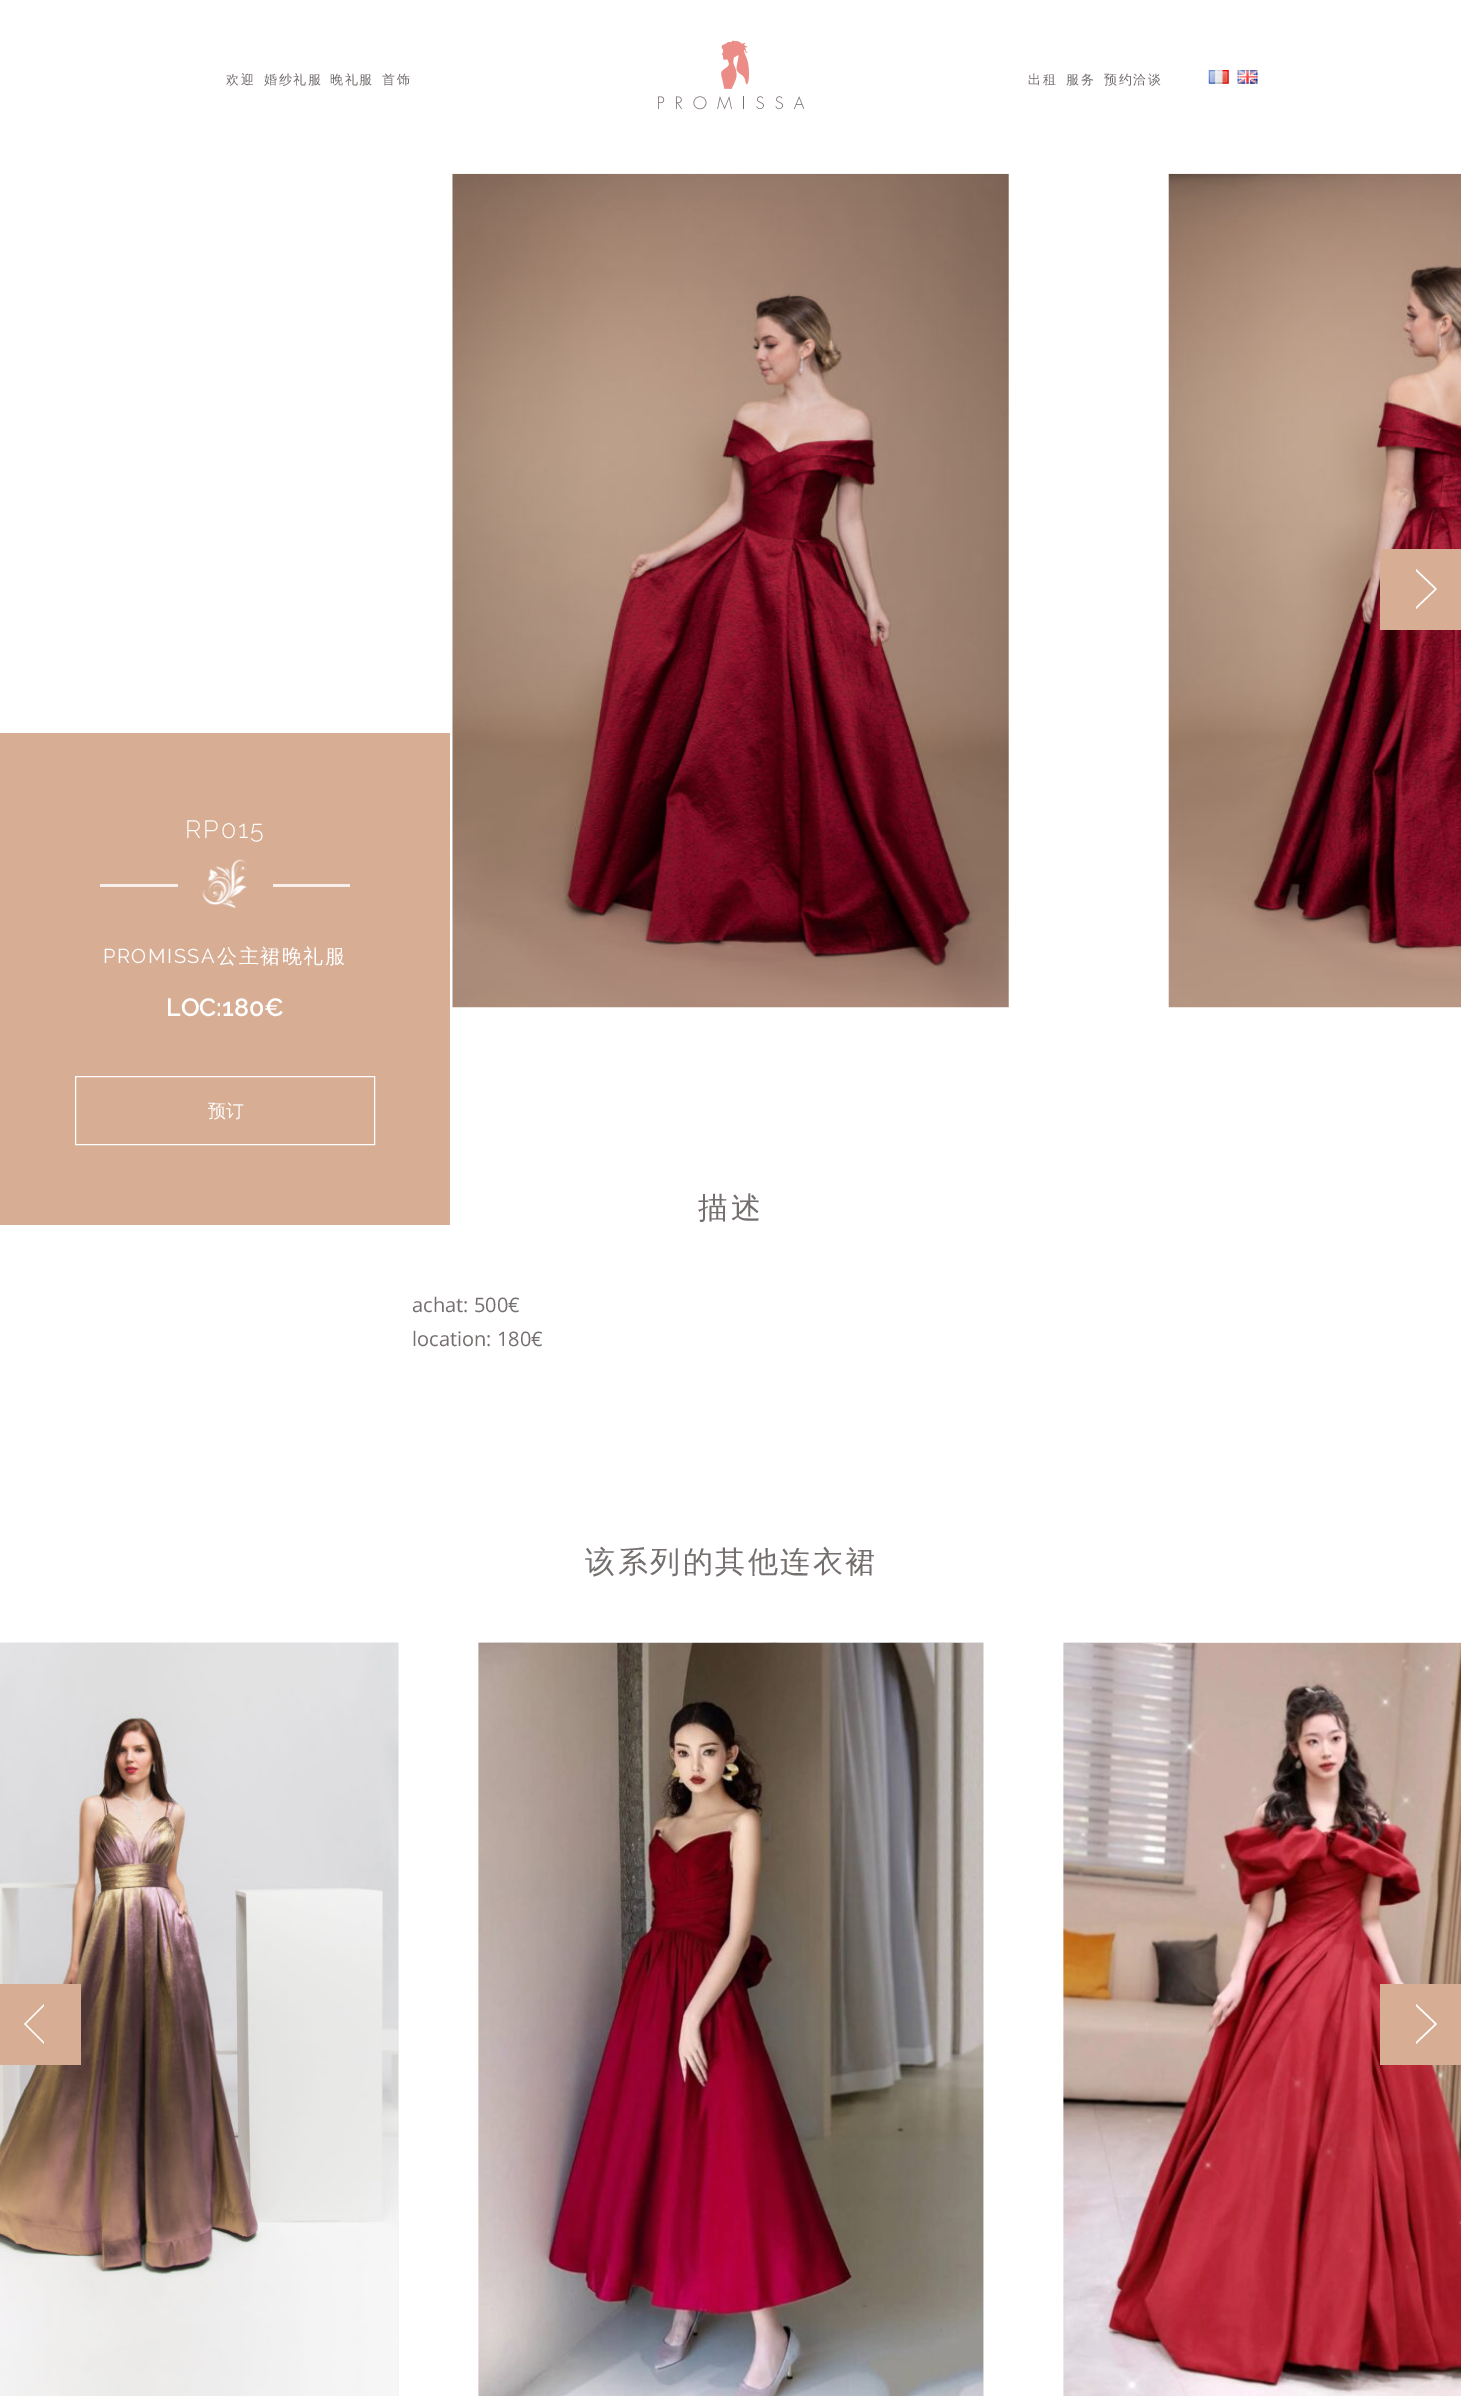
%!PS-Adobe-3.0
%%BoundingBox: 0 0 1461 2396
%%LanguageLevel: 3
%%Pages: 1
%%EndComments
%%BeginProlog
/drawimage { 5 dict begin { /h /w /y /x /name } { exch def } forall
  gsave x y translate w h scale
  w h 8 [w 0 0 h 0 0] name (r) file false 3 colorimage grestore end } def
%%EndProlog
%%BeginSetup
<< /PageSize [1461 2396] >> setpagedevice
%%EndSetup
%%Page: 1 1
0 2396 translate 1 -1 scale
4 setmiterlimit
1 setgray
0 0 1461 2396 rectfill
(images/1.raw) 658 40 146 70 drawimage
(images/2.raw) 1208 70 21 14 drawimage
(images/3.raw) 1237 70 21 14 drawimage
0.843 0.678 0.58 setrgbcolor
0 733 450 492 rectfill
0.969 0.937 0.922 setrgbcolor
100 884 250 3 rectfill
0.843 0.678 0.58 setrgbcolor
178 884 95 3 rectfill
(images/4.raw) 202 859 45 50 drawimage
1 setgray
75.5 1076.5 299 68 rectstroke
(images/5.raw) 452 173 557 835 drawimage
(images/6.raw) 1168 173 293 835 drawimage
0.843 0.678 0.58 setrgbcolor
1380 549 81 81 rectfill
1 setgray
newpath 1437 589 moveto 1416 569 lineto 1416 571 lineto 1435 589 lineto 1416 607 lineto 1416 609 lineto closepath fill
0.957 setgray
398 1643 1 753 rectfill
(images/7.raw) 0 1642 399 754 drawimage
983 1643 1 753 rectfill
(images/8.raw) 478 1642 506 754 drawimage
(images/9.raw) 1063 1642 398 754 drawimage
0.843 0.678 0.58 setrgbcolor
0 1984 81 81 rectfill
1 setgray
newpath 24 2024 moveto 44 2044 lineto 44 2042 lineto 26 2024 lineto 44 2006 lineto 44 2004 lineto closepath fill
0.843 0.678 0.58 setrgbcolor
1380 1984 81 81 rectfill
1 setgray
newpath 1437 2024 moveto 1416 2004 lineto 1416 2006 lineto 1435 2024 lineto 1416 2042 lineto 1416 2044 lineto closepath fill
/WenQuanYiZenHei-Medium [13 0 0 -13 0 0] selectfont
0.459 0.431 0.431 setrgbcolor
226 84 moveto 1.5 0 (欢迎) ashow
264 84 moveto 1.5 0 (婚纱礼服) ashow
330 84 moveto 1.5 0 (晚礼服) ashow
382 84 moveto 1.5 0 (首饰) ashow
1028 84 moveto 1.5 0 (出租) ashow
1066 84 moveto 1.5 0 (服务) ashow
1104 84 moveto 1.5 0 (预约洽谈) ashow
/Raleway-Light [25 0 0 -25 0 0] selectfont
1 setgray
185 838 moveto 2 0 (RP015) ashow
/Raleway-Regular [20 0 0 -20 0 0] selectfont
103 963 moveto 1.5 0 (PROMISSA) ashow
/WenQuanYiZenHei-Medium [20 0 0 -20 0 0] selectfont
217 963 moveto 1.5 0 (公主裙晚礼服) ashow
/Raleway-SemiBold [25 0 0 -25 0 0] selectfont
166 1016 moveto (LOC:180€) show
/WenQuanYiZenHei-Medium [18 0 0 -18 0 0] selectfont
208 1117 moveto (预订) show
/WenQuanYiZenHei-Medium [30 0 0 -30 0 0] selectfont
0.459 0.431 0.431 setrgbcolor
698 1218 moveto 2.5 0 (描述) ashow
/OpenSans-Regular [20 0 0 -20 0 0] selectfont
412 1312 moveto (achat: 500€) show
412 1346 moveto (location: 180€) show
/WenQuanYiZenHei-Medium [30 0 0 -30 0 0] selectfont
585 1572 moveto 2.5 0 (该系列的其他连衣裙) ashow
showpage
%%EOF
